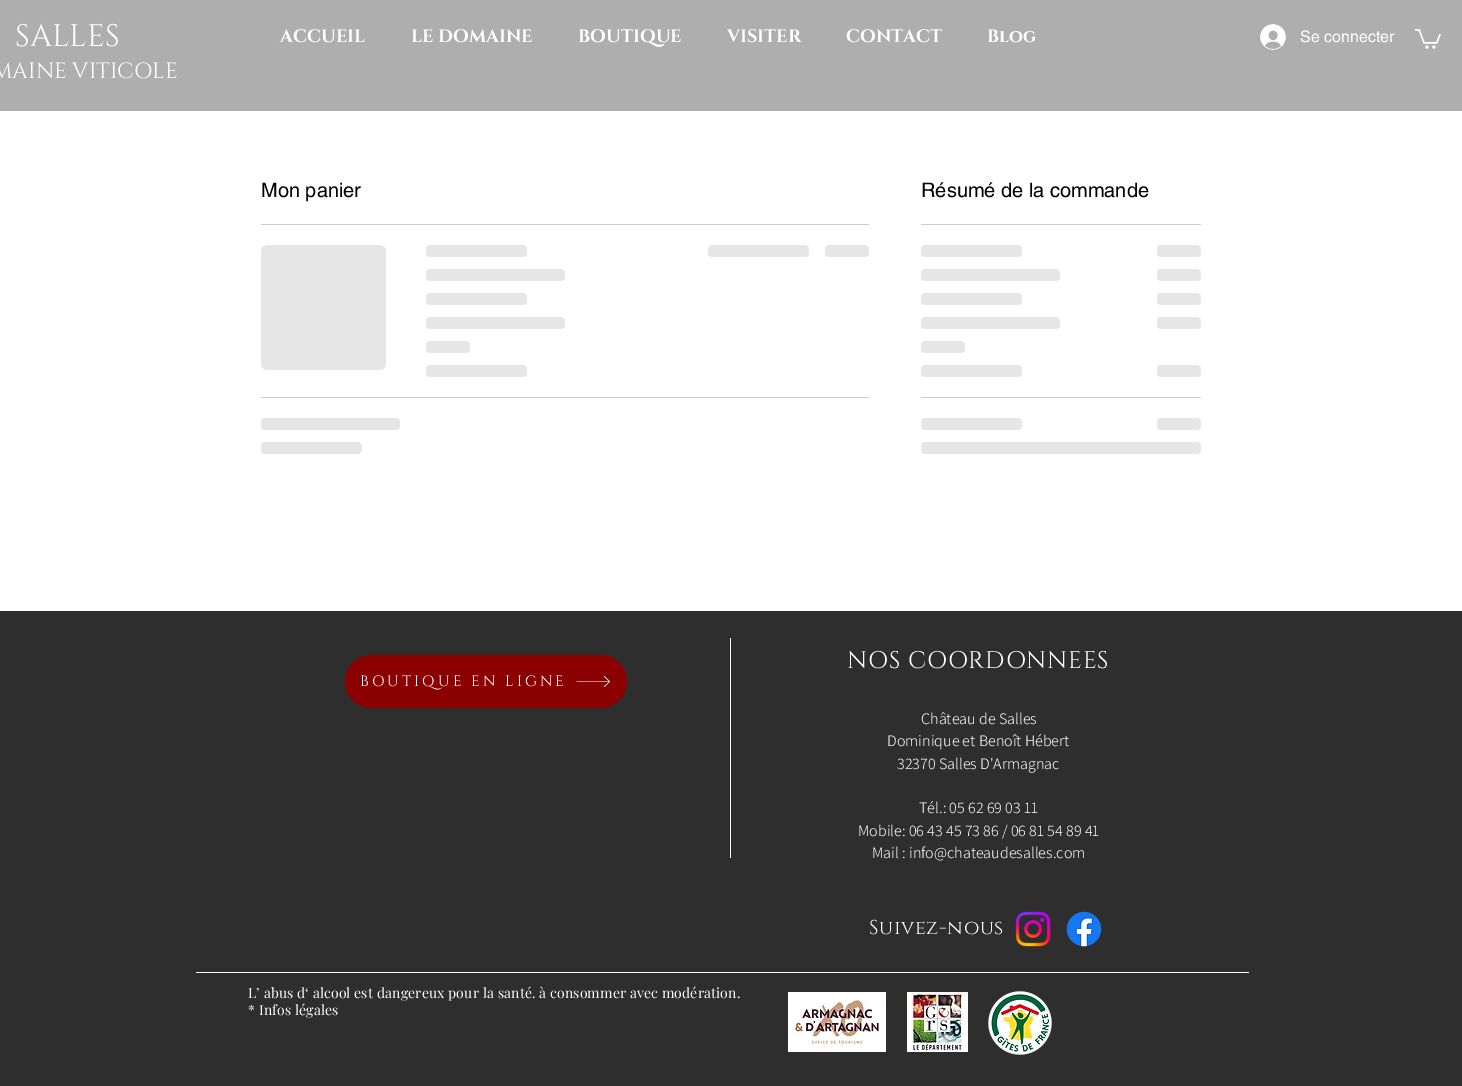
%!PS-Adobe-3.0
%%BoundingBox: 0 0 1462 1086
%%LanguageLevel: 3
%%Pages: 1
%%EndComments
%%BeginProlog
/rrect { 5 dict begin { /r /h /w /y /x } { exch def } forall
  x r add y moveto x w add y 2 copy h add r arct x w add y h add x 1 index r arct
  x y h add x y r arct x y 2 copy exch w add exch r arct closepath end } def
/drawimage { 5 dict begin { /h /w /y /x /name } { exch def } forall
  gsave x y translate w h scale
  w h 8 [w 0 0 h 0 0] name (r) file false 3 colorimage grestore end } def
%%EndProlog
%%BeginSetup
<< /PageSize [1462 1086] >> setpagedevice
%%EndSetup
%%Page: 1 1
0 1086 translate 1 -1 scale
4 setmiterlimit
1 setgray
0 0 1462 1086 rectfill
0.682 setgray
0 0 1462 111 rectfill
(images/1.raw) 1260 24 26 26 drawimage
(images/2.raw) 1415 29 26 20 drawimage
0.8 setgray
261 224 608 1 rectfill
gsave 261 245 125 125 8 rrect clip newpath
<< /ShadingType 2 /ColorSpace /DeviceRGB /Coords [261 308 761 308] /Extend [true true] /Function << /FunctionType 3 /Domain [0 1] /Functions [<< /FunctionType 2 /Domain [0 1] /C0 [0.902 0.902 0.902] /C1 [0.902 0.902 0.902] /N 1 >> << /FunctionType 2 /Domain [0 1] /C0 [0.902 0.902 0.902] /C1 [0.8 0.8 0.8] /N 1 >> << /FunctionType 2 /Domain [0 1] /C0 [0.8 0.8 0.8] /C1 [0.902 0.902 0.902] /N 1 >> << /FunctionType 2 /Domain [0 1] /C0 [0.902 0.902 0.902] /C1 [0.902 0.902 0.902] /N 1 >>] /Bounds [0.25 0.37 0.63] /Encode [0 1 0 1 0 1 0 1] >> >> shfill grestore
gsave 426 245 101 12 6 rrect clip newpath
<< /ShadingType 2 /ColorSpace /DeviceRGB /Coords [426 251 830 251] /Extend [true true] /Function << /FunctionType 3 /Domain [0 1] /Functions [<< /FunctionType 2 /Domain [0 1] /C0 [0.902 0.902 0.902] /C1 [0.902 0.902 0.902] /N 1 >> << /FunctionType 2 /Domain [0 1] /C0 [0.902 0.902 0.902] /C1 [0.8 0.8 0.8] /N 1 >> << /FunctionType 2 /Domain [0 1] /C0 [0.8 0.8 0.8] /C1 [0.902 0.902 0.902] /N 1 >> << /FunctionType 2 /Domain [0 1] /C0 [0.902 0.902 0.902] /C1 [0.902 0.902 0.902] /N 1 >>] /Bounds [0.25 0.37 0.63] /Encode [0 1 0 1 0 1 0 1] >> >> shfill grestore
gsave 426 269 139 12 6 rrect clip newpath
<< /ShadingType 2 /ColorSpace /DeviceRGB /Coords [426 275 982 275] /Extend [true true] /Function << /FunctionType 3 /Domain [0 1] /Functions [<< /FunctionType 2 /Domain [0 1] /C0 [0.902 0.902 0.902] /C1 [0.902 0.902 0.902] /N 1 >> << /FunctionType 2 /Domain [0 1] /C0 [0.902 0.902 0.902] /C1 [0.8 0.8 0.8] /N 1 >> << /FunctionType 2 /Domain [0 1] /C0 [0.8 0.8 0.8] /C1 [0.902 0.902 0.902] /N 1 >> << /FunctionType 2 /Domain [0 1] /C0 [0.902 0.902 0.902] /C1 [0.902 0.902 0.902] /N 1 >>] /Bounds [0.25 0.37 0.63] /Encode [0 1 0 1 0 1 0 1] >> >> shfill grestore
gsave 426 293 101 12 6 rrect clip newpath
<< /ShadingType 2 /ColorSpace /DeviceRGB /Coords [426 299 830 299] /Extend [true true] /Function << /FunctionType 3 /Domain [0 1] /Functions [<< /FunctionType 2 /Domain [0 1] /C0 [0.902 0.902 0.902] /C1 [0.902 0.902 0.902] /N 1 >> << /FunctionType 2 /Domain [0 1] /C0 [0.902 0.902 0.902] /C1 [0.8 0.8 0.8] /N 1 >> << /FunctionType 2 /Domain [0 1] /C0 [0.8 0.8 0.8] /C1 [0.902 0.902 0.902] /N 1 >> << /FunctionType 2 /Domain [0 1] /C0 [0.902 0.902 0.902] /C1 [0.902 0.902 0.902] /N 1 >>] /Bounds [0.25 0.37 0.63] /Encode [0 1 0 1 0 1 0 1] >> >> shfill grestore
gsave 426 317 139 12 6 rrect clip newpath
<< /ShadingType 2 /ColorSpace /DeviceRGB /Coords [426 323 982 323] /Extend [true true] /Function << /FunctionType 3 /Domain [0 1] /Functions [<< /FunctionType 2 /Domain [0 1] /C0 [0.902 0.902 0.902] /C1 [0.902 0.902 0.902] /N 1 >> << /FunctionType 2 /Domain [0 1] /C0 [0.902 0.902 0.902] /C1 [0.8 0.8 0.8] /N 1 >> << /FunctionType 2 /Domain [0 1] /C0 [0.8 0.8 0.8] /C1 [0.902 0.902 0.902] /N 1 >> << /FunctionType 2 /Domain [0 1] /C0 [0.902 0.902 0.902] /C1 [0.902 0.902 0.902] /N 1 >>] /Bounds [0.25 0.37 0.63] /Encode [0 1 0 1 0 1 0 1] >> >> shfill grestore
gsave 426 341 44 12 6 rrect clip newpath
<< /ShadingType 2 /ColorSpace /DeviceRGB /Coords [426 347 602 347] /Extend [true true] /Function << /FunctionType 3 /Domain [0 1] /Functions [<< /FunctionType 2 /Domain [0 1] /C0 [0.902 0.902 0.902] /C1 [0.902 0.902 0.902] /N 1 >> << /FunctionType 2 /Domain [0 1] /C0 [0.902 0.902 0.902] /C1 [0.8 0.8 0.8] /N 1 >> << /FunctionType 2 /Domain [0 1] /C0 [0.8 0.8 0.8] /C1 [0.902 0.902 0.902] /N 1 >> << /FunctionType 2 /Domain [0 1] /C0 [0.902 0.902 0.902] /C1 [0.902 0.902 0.902] /N 1 >>] /Bounds [0.25 0.37 0.63] /Encode [0 1 0 1 0 1 0 1] >> >> shfill grestore
gsave 426 365 101 12 6 rrect clip newpath
<< /ShadingType 2 /ColorSpace /DeviceRGB /Coords [426 371 830 371] /Extend [true true] /Function << /FunctionType 3 /Domain [0 1] /Functions [<< /FunctionType 2 /Domain [0 1] /C0 [0.902 0.902 0.902] /C1 [0.902 0.902 0.902] /N 1 >> << /FunctionType 2 /Domain [0 1] /C0 [0.902 0.902 0.902] /C1 [0.8 0.8 0.8] /N 1 >> << /FunctionType 2 /Domain [0 1] /C0 [0.8 0.8 0.8] /C1 [0.902 0.902 0.902] /N 1 >> << /FunctionType 2 /Domain [0 1] /C0 [0.902 0.902 0.902] /C1 [0.902 0.902 0.902] /N 1 >>] /Bounds [0.25 0.37 0.63] /Encode [0 1 0 1 0 1 0 1] >> >> shfill grestore
gsave 708 245 101 12 6 rrect clip newpath
<< /ShadingType 2 /ColorSpace /DeviceRGB /Coords [708 251 1112 251] /Extend [true true] /Function << /FunctionType 3 /Domain [0 1] /Functions [<< /FunctionType 2 /Domain [0 1] /C0 [0.902 0.902 0.902] /C1 [0.902 0.902 0.902] /N 1 >> << /FunctionType 2 /Domain [0 1] /C0 [0.902 0.902 0.902] /C1 [0.8 0.8 0.8] /N 1 >> << /FunctionType 2 /Domain [0 1] /C0 [0.8 0.8 0.8] /C1 [0.902 0.902 0.902] /N 1 >> << /FunctionType 2 /Domain [0 1] /C0 [0.902 0.902 0.902] /C1 [0.902 0.902 0.902] /N 1 >>] /Bounds [0.25 0.37 0.63] /Encode [0 1 0 1 0 1 0 1] >> >> shfill grestore
gsave 825 245 44 12 6 rrect clip newpath
<< /ShadingType 2 /ColorSpace /DeviceRGB /Coords [825 251 1001 251] /Extend [true true] /Function << /FunctionType 3 /Domain [0 1] /Functions [<< /FunctionType 2 /Domain [0 1] /C0 [0.902 0.902 0.902] /C1 [0.902 0.902 0.902] /N 1 >> << /FunctionType 2 /Domain [0 1] /C0 [0.902 0.902 0.902] /C1 [0.8 0.8 0.8] /N 1 >> << /FunctionType 2 /Domain [0 1] /C0 [0.8 0.8 0.8] /C1 [0.902 0.902 0.902] /N 1 >> << /FunctionType 2 /Domain [0 1] /C0 [0.902 0.902 0.902] /C1 [0.902 0.902 0.902] /N 1 >>] /Bounds [0.25 0.37 0.63] /Encode [0 1 0 1 0 1 0 1] >> >> shfill grestore
261 397 608 1 rectfill
gsave 261 418 139 12 6 rrect clip newpath
<< /ShadingType 2 /ColorSpace /DeviceRGB /Coords [261 424 817 424] /Extend [true true] /Function << /FunctionType 3 /Domain [0 1] /Functions [<< /FunctionType 2 /Domain [0 1] /C0 [0.902 0.902 0.902] /C1 [0.902 0.902 0.902] /N 1 >> << /FunctionType 2 /Domain [0 1] /C0 [0.902 0.902 0.902] /C1 [0.8 0.8 0.8] /N 1 >> << /FunctionType 2 /Domain [0 1] /C0 [0.8 0.8 0.8] /C1 [0.902 0.902 0.902] /N 1 >> << /FunctionType 2 /Domain [0 1] /C0 [0.902 0.902 0.902] /C1 [0.902 0.902 0.902] /N 1 >>] /Bounds [0.25 0.37 0.63] /Encode [0 1 0 1 0 1 0 1] >> >> shfill grestore
gsave 261 442 101 12 6 rrect clip newpath
<< /ShadingType 2 /ColorSpace /DeviceRGB /Coords [261 448 665 448] /Extend [true true] /Function << /FunctionType 3 /Domain [0 1] /Functions [<< /FunctionType 2 /Domain [0 1] /C0 [0.902 0.902 0.902] /C1 [0.902 0.902 0.902] /N 1 >> << /FunctionType 2 /Domain [0 1] /C0 [0.902 0.902 0.902] /C1 [0.8 0.8 0.8] /N 1 >> << /FunctionType 2 /Domain [0 1] /C0 [0.8 0.8 0.8] /C1 [0.902 0.902 0.902] /N 1 >> << /FunctionType 2 /Domain [0 1] /C0 [0.902 0.902 0.902] /C1 [0.902 0.902 0.902] /N 1 >>] /Bounds [0.25 0.37 0.63] /Encode [0 1 0 1 0 1 0 1] >> >> shfill grestore
921 224 280 1 rectfill
gsave 921 245 101 12 6 rrect clip newpath
<< /ShadingType 2 /ColorSpace /DeviceRGB /Coords [921 251 1325 251] /Extend [true true] /Function << /FunctionType 3 /Domain [0 1] /Functions [<< /FunctionType 2 /Domain [0 1] /C0 [0.902 0.902 0.902] /C1 [0.902 0.902 0.902] /N 1 >> << /FunctionType 2 /Domain [0 1] /C0 [0.902 0.902 0.902] /C1 [0.8 0.8 0.8] /N 1 >> << /FunctionType 2 /Domain [0 1] /C0 [0.8 0.8 0.8] /C1 [0.902 0.902 0.902] /N 1 >> << /FunctionType 2 /Domain [0 1] /C0 [0.902 0.902 0.902] /C1 [0.902 0.902 0.902] /N 1 >>] /Bounds [0.25 0.37 0.63] /Encode [0 1 0 1 0 1 0 1] >> >> shfill grestore
gsave 1157 245 44 12 6 rrect clip newpath
<< /ShadingType 2 /ColorSpace /DeviceRGB /Coords [1157 251 1333 251] /Extend [true true] /Function << /FunctionType 3 /Domain [0 1] /Functions [<< /FunctionType 2 /Domain [0 1] /C0 [0.902 0.902 0.902] /C1 [0.902 0.902 0.902] /N 1 >> << /FunctionType 2 /Domain [0 1] /C0 [0.902 0.902 0.902] /C1 [0.8 0.8 0.8] /N 1 >> << /FunctionType 2 /Domain [0 1] /C0 [0.8 0.8 0.8] /C1 [0.902 0.902 0.902] /N 1 >> << /FunctionType 2 /Domain [0 1] /C0 [0.902 0.902 0.902] /C1 [0.902 0.902 0.902] /N 1 >>] /Bounds [0.25 0.37 0.63] /Encode [0 1 0 1 0 1 0 1] >> >> shfill grestore
gsave 921 269 139 12 6 rrect clip newpath
<< /ShadingType 2 /ColorSpace /DeviceRGB /Coords [921 275 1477 275] /Extend [true true] /Function << /FunctionType 3 /Domain [0 1] /Functions [<< /FunctionType 2 /Domain [0 1] /C0 [0.902 0.902 0.902] /C1 [0.902 0.902 0.902] /N 1 >> << /FunctionType 2 /Domain [0 1] /C0 [0.902 0.902 0.902] /C1 [0.8 0.8 0.8] /N 1 >> << /FunctionType 2 /Domain [0 1] /C0 [0.8 0.8 0.8] /C1 [0.902 0.902 0.902] /N 1 >> << /FunctionType 2 /Domain [0 1] /C0 [0.902 0.902 0.902] /C1 [0.902 0.902 0.902] /N 1 >>] /Bounds [0.25 0.37 0.63] /Encode [0 1 0 1 0 1 0 1] >> >> shfill grestore
gsave 1157 269 44 12 6 rrect clip newpath
<< /ShadingType 2 /ColorSpace /DeviceRGB /Coords [1157 275 1333 275] /Extend [true true] /Function << /FunctionType 3 /Domain [0 1] /Functions [<< /FunctionType 2 /Domain [0 1] /C0 [0.902 0.902 0.902] /C1 [0.902 0.902 0.902] /N 1 >> << /FunctionType 2 /Domain [0 1] /C0 [0.902 0.902 0.902] /C1 [0.8 0.8 0.8] /N 1 >> << /FunctionType 2 /Domain [0 1] /C0 [0.8 0.8 0.8] /C1 [0.902 0.902 0.902] /N 1 >> << /FunctionType 2 /Domain [0 1] /C0 [0.902 0.902 0.902] /C1 [0.902 0.902 0.902] /N 1 >>] /Bounds [0.25 0.37 0.63] /Encode [0 1 0 1 0 1 0 1] >> >> shfill grestore
gsave 921 293 101 12 6 rrect clip newpath
<< /ShadingType 2 /ColorSpace /DeviceRGB /Coords [921 299 1325 299] /Extend [true true] /Function << /FunctionType 3 /Domain [0 1] /Functions [<< /FunctionType 2 /Domain [0 1] /C0 [0.902 0.902 0.902] /C1 [0.902 0.902 0.902] /N 1 >> << /FunctionType 2 /Domain [0 1] /C0 [0.902 0.902 0.902] /C1 [0.8 0.8 0.8] /N 1 >> << /FunctionType 2 /Domain [0 1] /C0 [0.8 0.8 0.8] /C1 [0.902 0.902 0.902] /N 1 >> << /FunctionType 2 /Domain [0 1] /C0 [0.902 0.902 0.902] /C1 [0.902 0.902 0.902] /N 1 >>] /Bounds [0.25 0.37 0.63] /Encode [0 1 0 1 0 1 0 1] >> >> shfill grestore
gsave 1157 293 44 12 6 rrect clip newpath
<< /ShadingType 2 /ColorSpace /DeviceRGB /Coords [1157 299 1333 299] /Extend [true true] /Function << /FunctionType 3 /Domain [0 1] /Functions [<< /FunctionType 2 /Domain [0 1] /C0 [0.902 0.902 0.902] /C1 [0.902 0.902 0.902] /N 1 >> << /FunctionType 2 /Domain [0 1] /C0 [0.902 0.902 0.902] /C1 [0.8 0.8 0.8] /N 1 >> << /FunctionType 2 /Domain [0 1] /C0 [0.8 0.8 0.8] /C1 [0.902 0.902 0.902] /N 1 >> << /FunctionType 2 /Domain [0 1] /C0 [0.902 0.902 0.902] /C1 [0.902 0.902 0.902] /N 1 >>] /Bounds [0.25 0.37 0.63] /Encode [0 1 0 1 0 1 0 1] >> >> shfill grestore
gsave 921 317 139 12 6 rrect clip newpath
<< /ShadingType 2 /ColorSpace /DeviceRGB /Coords [921 323 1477 323] /Extend [true true] /Function << /FunctionType 3 /Domain [0 1] /Functions [<< /FunctionType 2 /Domain [0 1] /C0 [0.902 0.902 0.902] /C1 [0.902 0.902 0.902] /N 1 >> << /FunctionType 2 /Domain [0 1] /C0 [0.902 0.902 0.902] /C1 [0.8 0.8 0.8] /N 1 >> << /FunctionType 2 /Domain [0 1] /C0 [0.8 0.8 0.8] /C1 [0.902 0.902 0.902] /N 1 >> << /FunctionType 2 /Domain [0 1] /C0 [0.902 0.902 0.902] /C1 [0.902 0.902 0.902] /N 1 >>] /Bounds [0.25 0.37 0.63] /Encode [0 1 0 1 0 1 0 1] >> >> shfill grestore
gsave 1157 317 44 12 6 rrect clip newpath
<< /ShadingType 2 /ColorSpace /DeviceRGB /Coords [1157 323 1333 323] /Extend [true true] /Function << /FunctionType 3 /Domain [0 1] /Functions [<< /FunctionType 2 /Domain [0 1] /C0 [0.902 0.902 0.902] /C1 [0.902 0.902 0.902] /N 1 >> << /FunctionType 2 /Domain [0 1] /C0 [0.902 0.902 0.902] /C1 [0.8 0.8 0.8] /N 1 >> << /FunctionType 2 /Domain [0 1] /C0 [0.8 0.8 0.8] /C1 [0.902 0.902 0.902] /N 1 >> << /FunctionType 2 /Domain [0 1] /C0 [0.902 0.902 0.902] /C1 [0.902 0.902 0.902] /N 1 >>] /Bounds [0.25 0.37 0.63] /Encode [0 1 0 1 0 1 0 1] >> >> shfill grestore
gsave 921 341 44 12 6 rrect clip newpath
<< /ShadingType 2 /ColorSpace /DeviceRGB /Coords [921 347 1097 347] /Extend [true true] /Function << /FunctionType 3 /Domain [0 1] /Functions [<< /FunctionType 2 /Domain [0 1] /C0 [0.902 0.902 0.902] /C1 [0.902 0.902 0.902] /N 1 >> << /FunctionType 2 /Domain [0 1] /C0 [0.902 0.902 0.902] /C1 [0.8 0.8 0.8] /N 1 >> << /FunctionType 2 /Domain [0 1] /C0 [0.8 0.8 0.8] /C1 [0.902 0.902 0.902] /N 1 >> << /FunctionType 2 /Domain [0 1] /C0 [0.902 0.902 0.902] /C1 [0.902 0.902 0.902] /N 1 >>] /Bounds [0.25 0.37 0.63] /Encode [0 1 0 1 0 1 0 1] >> >> shfill grestore
gsave 921 365 101 12 6 rrect clip newpath
<< /ShadingType 2 /ColorSpace /DeviceRGB /Coords [921 371 1325 371] /Extend [true true] /Function << /FunctionType 3 /Domain [0 1] /Functions [<< /FunctionType 2 /Domain [0 1] /C0 [0.902 0.902 0.902] /C1 [0.902 0.902 0.902] /N 1 >> << /FunctionType 2 /Domain [0 1] /C0 [0.902 0.902 0.902] /C1 [0.8 0.8 0.8] /N 1 >> << /FunctionType 2 /Domain [0 1] /C0 [0.8 0.8 0.8] /C1 [0.902 0.902 0.902] /N 1 >> << /FunctionType 2 /Domain [0 1] /C0 [0.902 0.902 0.902] /C1 [0.902 0.902 0.902] /N 1 >>] /Bounds [0.25 0.37 0.63] /Encode [0 1 0 1 0 1 0 1] >> >> shfill grestore
gsave 1157 365 44 12 6 rrect clip newpath
<< /ShadingType 2 /ColorSpace /DeviceRGB /Coords [1157 371 1333 371] /Extend [true true] /Function << /FunctionType 3 /Domain [0 1] /Functions [<< /FunctionType 2 /Domain [0 1] /C0 [0.902 0.902 0.902] /C1 [0.902 0.902 0.902] /N 1 >> << /FunctionType 2 /Domain [0 1] /C0 [0.902 0.902 0.902] /C1 [0.8 0.8 0.8] /N 1 >> << /FunctionType 2 /Domain [0 1] /C0 [0.8 0.8 0.8] /C1 [0.902 0.902 0.902] /N 1 >> << /FunctionType 2 /Domain [0 1] /C0 [0.902 0.902 0.902] /C1 [0.902 0.902 0.902] /N 1 >>] /Bounds [0.25 0.37 0.63] /Encode [0 1 0 1 0 1 0 1] >> >> shfill grestore
921 397 280 1 rectfill
gsave 921 418 101 12 6 rrect clip newpath
<< /ShadingType 2 /ColorSpace /DeviceRGB /Coords [921 424 1325 424] /Extend [true true] /Function << /FunctionType 3 /Domain [0 1] /Functions [<< /FunctionType 2 /Domain [0 1] /C0 [0.902 0.902 0.902] /C1 [0.902 0.902 0.902] /N 1 >> << /FunctionType 2 /Domain [0 1] /C0 [0.902 0.902 0.902] /C1 [0.8 0.8 0.8] /N 1 >> << /FunctionType 2 /Domain [0 1] /C0 [0.8 0.8 0.8] /C1 [0.902 0.902 0.902] /N 1 >> << /FunctionType 2 /Domain [0 1] /C0 [0.902 0.902 0.902] /C1 [0.902 0.902 0.902] /N 1 >>] /Bounds [0.25 0.37 0.63] /Encode [0 1 0 1 0 1 0 1] >> >> shfill grestore
gsave 1157 418 44 12 6 rrect clip newpath
<< /ShadingType 2 /ColorSpace /DeviceRGB /Coords [1157 424 1333 424] /Extend [true true] /Function << /FunctionType 3 /Domain [0 1] /Functions [<< /FunctionType 2 /Domain [0 1] /C0 [0.902 0.902 0.902] /C1 [0.902 0.902 0.902] /N 1 >> << /FunctionType 2 /Domain [0 1] /C0 [0.902 0.902 0.902] /C1 [0.8 0.8 0.8] /N 1 >> << /FunctionType 2 /Domain [0 1] /C0 [0.8 0.8 0.8] /C1 [0.902 0.902 0.902] /N 1 >> << /FunctionType 2 /Domain [0 1] /C0 [0.902 0.902 0.902] /C1 [0.902 0.902 0.902] /N 1 >>] /Bounds [0.25 0.37 0.63] /Encode [0 1 0 1 0 1 0 1] >> >> shfill grestore
gsave 921 442 280 12 6 rrect clip newpath
<< /ShadingType 2 /ColorSpace /DeviceRGB /Coords [921 448 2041 448] /Extend [true true] /Function << /FunctionType 3 /Domain [0 1] /Functions [<< /FunctionType 2 /Domain [0 1] /C0 [0.902 0.902 0.902] /C1 [0.902 0.902 0.902] /N 1 >> << /FunctionType 2 /Domain [0 1] /C0 [0.902 0.902 0.902] /C1 [0.8 0.8 0.8] /N 1 >> << /FunctionType 2 /Domain [0 1] /C0 [0.8 0.8 0.8] /C1 [0.902 0.902 0.902] /N 1 >> << /FunctionType 2 /Domain [0 1] /C0 [0.902 0.902 0.902] /C1 [0.902 0.902 0.902] /N 1 >>] /Bounds [0.25 0.37 0.63] /Encode [0 1 0 1 0 1 0 1] >> >> shfill grestore
0.184 0.18 0.18 setrgbcolor
0 611 1462 475 rectfill
1 setgray
730 638 1 220 rectfill
0.545 0 0 setrgbcolor
345 655 282 53 26.5 rrect fill
1 setgray
newpath 604.5 676 moveto 604 676.5 lineto 609 681.5 lineto 576.5 681.5 lineto 576.5 682 lineto 609 682 lineto 604 686.5 lineto 604.5 687 lineto 610 681.5 lineto closepath fill
(images/3.raw) 1015 911 36 36 drawimage
(images/4.raw) 1066 911 36 36 drawimage
196 972 1053 1 rectfill
(images/5.raw) 788 992 98 60 drawimage
(images/6.raw) 907 992 61 60 drawimage
(images/7.raw) 988 991 64 64 drawimage
/Cinzel-Regular [31 0 0 -31 0 0] selectfont
15 46 moveto (SALLES) show
/Cinzel-Regular [22 0 0 -22 0 0] selectfont
-8 78 moveto (MAINE VITICOLE) show
/Cinzel-Bold [18 0 0 -18 0 0] selectfont
280 42 moveto (ACCUEIL) show
411 42 moveto (LE DOMAINE) show
578 42 moveto (BOUTIQUE) show
727 42 moveto (VISITER) show
846 42 moveto (CONTACT) show
987 42 moveto (Blog) show
/helvetica-Regular [16 0 0 -16 0 0] selectfont
1300 42 moveto (Se connecter) show
/helvetica-Regular [20 0 0 -20 0 0] selectfont
0 setgray
261 197 moveto (Mon panier) show
921 197 moveto (Résumé de la commande) show
/Cinzel-Regular [24 0 0 -24 0 0] selectfont
1 setgray
847 668 moveto 0.75 0 (NOS COORDONNEES) ashow
/Cinzel-Regular [15 0 0 -15 0 0] selectfont
360 686 moveto 3 0 (BOUTIQUE EN LIGNE) ashow
/Assistant-Light [16 0 0 -16 0 0] selectfont
921 724 moveto (Château de Salles) show
887 746 moveto (Dominique et Benoît Hébert) show
897 769 moveto (32370 Salles D'Armagnac) show
919 813 moveto (Tél.: 05 62 69 03 11) show
858 836 moveto (Mobile: 06 43 45 73 86 / 06 81 54 89 41) show
872 858 moveto (Mail : info@chateaudesalles.com) show
/Cinzel-Regular [20 0 0 -20 0 0] selectfont
869 934 moveto 0.6 0 (Suivez-nous) ashow
/PlayfairDisplay-Regular [14 0 0 -14 0 0] selectfont
248 998 moveto 0.15 0 (L’ abus d‘ alcool est dangereux pour la santé. à consommer avec modération.) ashow
248 1015 moveto 0.15 0 (* Infos légales) ashow
showpage
%%EOF
